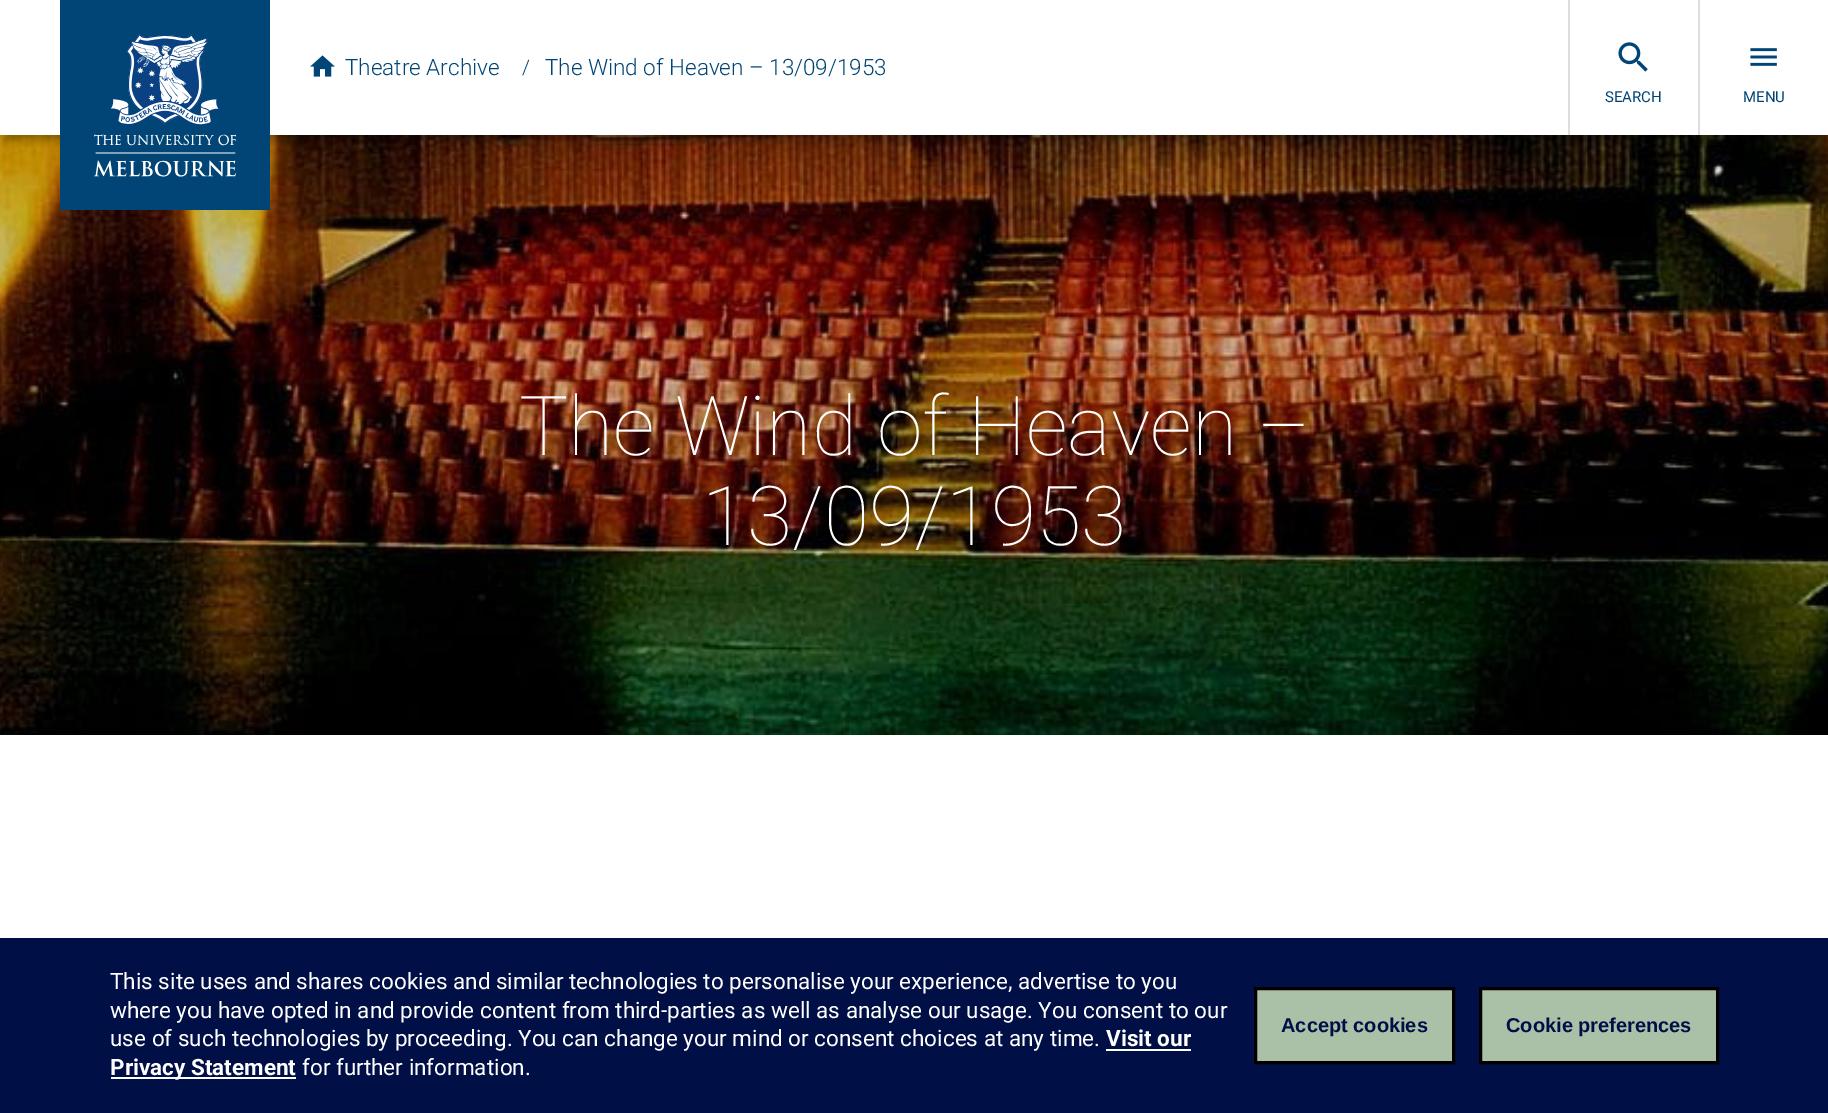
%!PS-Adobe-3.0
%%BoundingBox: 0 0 1828 1113
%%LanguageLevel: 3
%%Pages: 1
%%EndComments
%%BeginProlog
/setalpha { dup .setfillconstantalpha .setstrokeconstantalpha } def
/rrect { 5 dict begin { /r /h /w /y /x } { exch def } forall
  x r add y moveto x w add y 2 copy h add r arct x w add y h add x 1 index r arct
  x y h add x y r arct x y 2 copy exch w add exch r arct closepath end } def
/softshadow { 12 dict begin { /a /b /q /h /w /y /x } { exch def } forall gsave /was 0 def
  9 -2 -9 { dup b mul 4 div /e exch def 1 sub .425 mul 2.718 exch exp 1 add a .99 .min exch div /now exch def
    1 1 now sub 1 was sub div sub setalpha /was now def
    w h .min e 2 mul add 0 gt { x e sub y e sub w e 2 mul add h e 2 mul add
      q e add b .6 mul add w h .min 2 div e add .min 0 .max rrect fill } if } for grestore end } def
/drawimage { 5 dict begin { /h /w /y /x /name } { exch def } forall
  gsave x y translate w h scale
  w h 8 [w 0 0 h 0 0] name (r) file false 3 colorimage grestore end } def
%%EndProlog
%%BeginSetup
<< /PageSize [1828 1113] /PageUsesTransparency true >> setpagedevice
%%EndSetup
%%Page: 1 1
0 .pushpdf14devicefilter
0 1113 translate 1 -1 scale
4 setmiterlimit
1 setgray
0 0 1828 1113 rectfill
(images/5.raw) 0 135 1828 600 drawimage
gsave
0 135 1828 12 rectclip
0 setgray
5 14 1819 126 0 4.5 0.3 softshadow
grestore
0 0.271 0.463 setrgbcolor
60 0 210 210 rectfill
(images/1.raw) 94 34 142 143 drawimage
(images/2.raw) 310 55 25 22 drawimage
0.867 setgray
1568 0 2 135 rectfill
(images/3.raw) 1618 42 30 30 drawimage
1698 0 2 135 rectfill
(images/4.raw) 1750 48 27 18 drawimage
0 0.059 0.275 setrgbcolor
0 938 1828 175 rectfill
1 setgray
1106 1049 85 2 rectfill
111 1077 185 2 rectfill
0.671 0.757 0.655 setrgbcolor
newpath 1255.5 988.5 moveto 1453.5 988.5 lineto 1453.5 1062.5 lineto 1255.5 1062.5 lineto closepath gsave fill grestore
0 setgray
3 setlinewidth
stroke
0.671 0.757 0.655 setrgbcolor
newpath 1480.5 988.5 moveto 1717.5 988.5 lineto 1717.5 1062.5 lineto 1480.5 1062.5 lineto closepath gsave fill grestore
0 setgray
stroke
/Roboto-Light [22.5 0 0 -22.5 0 0] selectfont
0 0.271 0.463 setrgbcolor
345 75 moveto (Theatre Archive) show
/Roboto-Light [20 0 0 -20 0 0] selectfont
522 74 moveto (/) show
/Roboto-Light [22.5 0 0 -22.5 0 0] selectfont
545 75 moveto (The Wind of Heaven – 13/09/1953) show
/Roboto-Regular [15 0 0 -15 0 0] selectfont
1605 102 moveto (SEARCH) show
1743 102 moveto (MENU) show
/Roboto-Thin [82.5 0 0 -82.5 0 0] selectfont
1 setgray
519 455 moveto (The Wind of Heaven –) show
702 545 moveto (13/09/1953) show
/Roboto-Regular [22.5 0 0 -22.5 0 0] selectfont
110 989 moveto (This site uses and shares cookies and similar technologies to personalise your experience, advertise to you) show
110 1018 moveto (where you have opted in and provide content from third-parties as well as analyse our usage. You consent to our) show
110 1046 moveto (use of such technologies by proceeding. You can change your mind or consent choices at any time.) show
/Roboto-Bold [22.5 0 0 -22.5 0 0] selectfont
1106 1046 moveto (Visit our) show
110 1075 moveto (Privacy Statement) show
/Roboto-Regular [22.5 0 0 -22.5 0 0] selectfont
302 1075 moveto (for further information.) show
/LiberationSans-Bold [20 0 0 -20 0 0] selectfont
0 0.059 0.275 setrgbcolor
1281 1032 moveto (Accept cookies) show
1506 1032 moveto (Cookie preferences) show
.poppdf14devicefilter showpage
%%EOF
